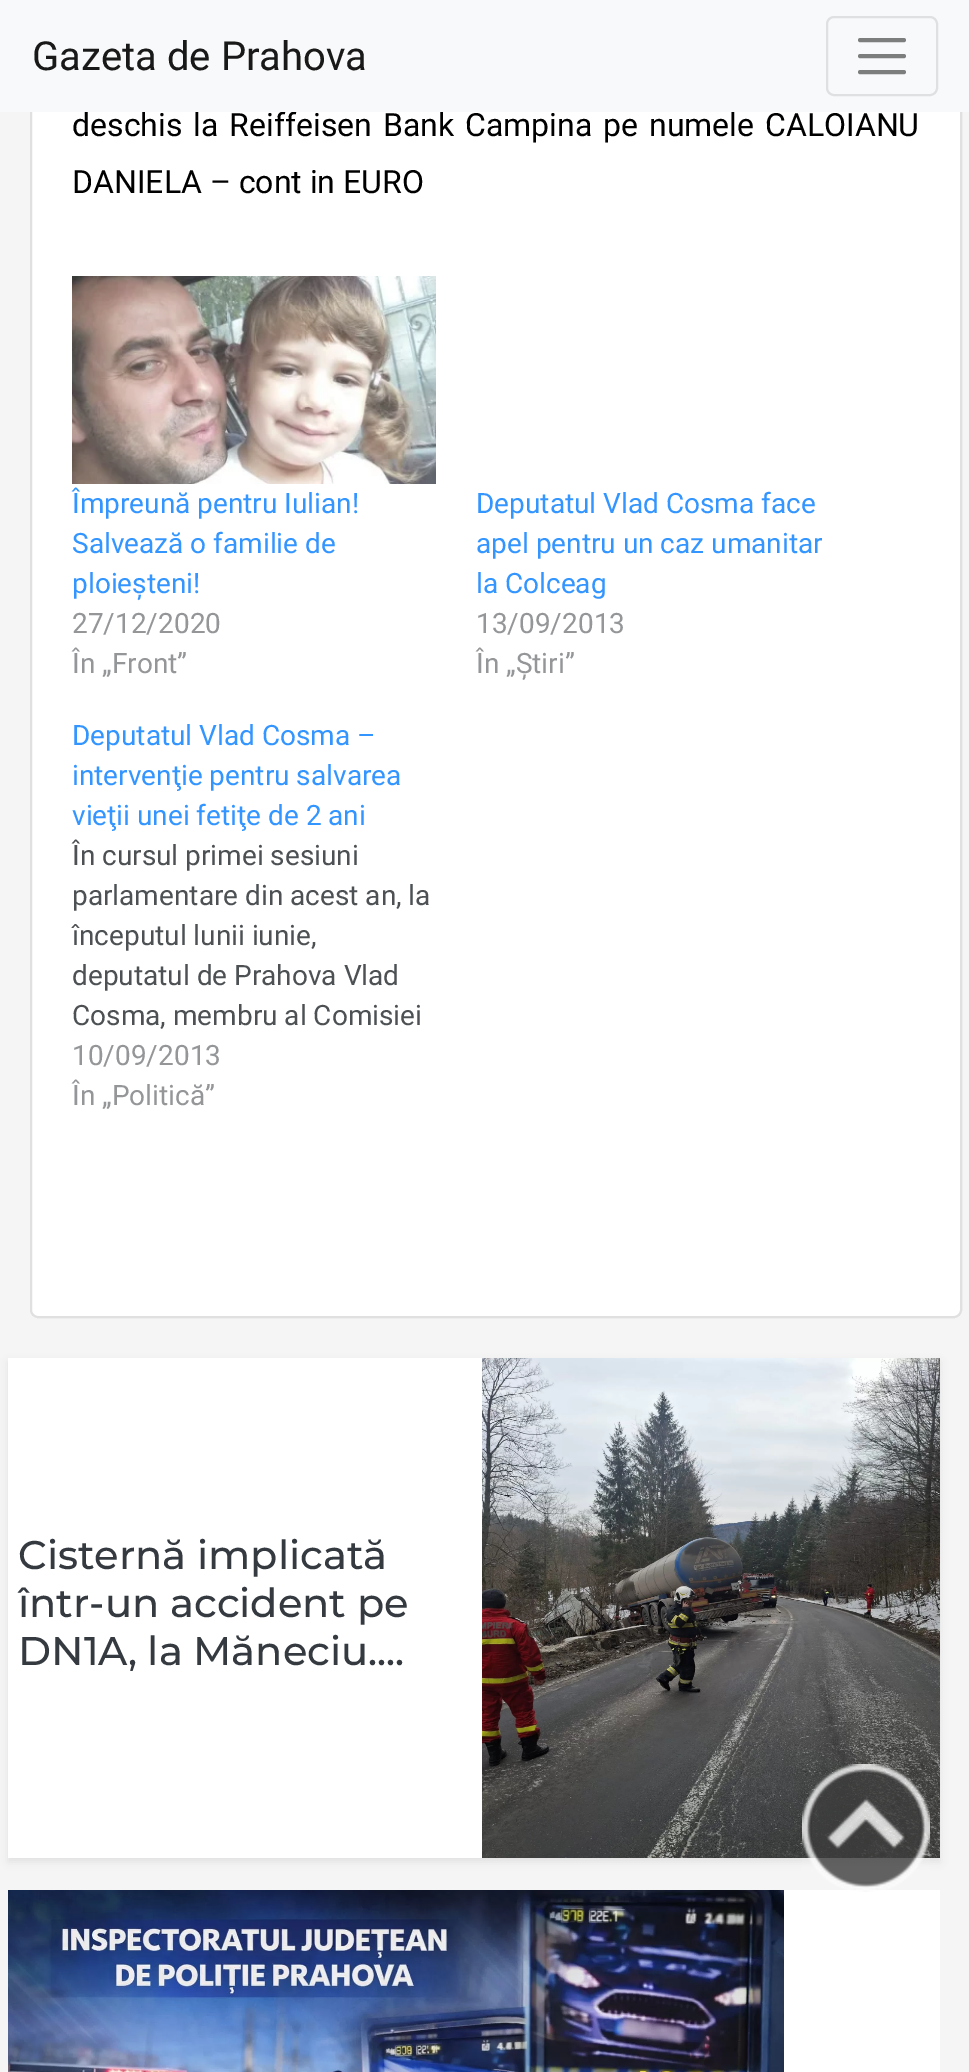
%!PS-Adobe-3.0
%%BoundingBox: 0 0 969 2072
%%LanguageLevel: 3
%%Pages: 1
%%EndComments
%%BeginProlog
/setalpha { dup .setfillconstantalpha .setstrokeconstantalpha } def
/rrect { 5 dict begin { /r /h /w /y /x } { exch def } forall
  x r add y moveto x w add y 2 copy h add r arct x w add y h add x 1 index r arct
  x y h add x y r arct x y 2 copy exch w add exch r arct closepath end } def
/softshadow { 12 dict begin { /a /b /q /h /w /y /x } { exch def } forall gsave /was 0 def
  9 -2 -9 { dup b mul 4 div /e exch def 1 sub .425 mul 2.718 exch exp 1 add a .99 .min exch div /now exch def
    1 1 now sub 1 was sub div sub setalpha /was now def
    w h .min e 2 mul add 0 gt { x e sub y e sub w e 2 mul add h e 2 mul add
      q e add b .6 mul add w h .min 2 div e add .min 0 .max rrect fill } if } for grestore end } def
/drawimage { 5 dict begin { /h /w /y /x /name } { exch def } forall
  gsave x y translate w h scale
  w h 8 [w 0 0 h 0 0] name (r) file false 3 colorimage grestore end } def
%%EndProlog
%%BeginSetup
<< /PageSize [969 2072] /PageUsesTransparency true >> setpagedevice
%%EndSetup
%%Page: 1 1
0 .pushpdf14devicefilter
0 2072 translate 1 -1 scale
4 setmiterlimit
0.961 setgray
0 0 969 2072 rectfill
1 setgray
30 -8 932 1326 8 rrect fill
0.12 setalpha
0 setgray
2 setlinewidth
31 -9 930 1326 7 rrect stroke
1 setalpha
(images/1.raw) 72 276 364 208 drawimage
8 1362 932 500 0 4 0.07 softshadow
1 setgray
8 1358 474 500 rectfill
(images/2.raw) 482 1358 458 500 drawimage
784 1890 156 182 rectfill
(images/3.raw) 8 1890 776 182 drawimage
(images/4.raw) 802 1764 128 128 drawimage
/Roboto-Regular [32 0 0 -32 0 0] selectfont
0 setgray
72 136 moveto 3 0 32 (deschis la Reiffeisen Bank Campina pe numele CALOIANU) widthshow
0.973 0.976 0.98 setrgbcolor
0 0 969 112 rectfill
0.875 0.878 0.882 setrgbcolor
827 17 110 78 7 rrect stroke
0.486 0.49 0.49 setrgbcolor
4 setlinewidth
1 setlinecap
newpath 860 40 moveto 904 40 lineto 860 56 moveto 904 56 lineto 860 72 moveto 904 72 lineto stroke
/Roboto-Regular [40 0 0 -40 0 0] selectfont
0.098 setgray
32 70 moveto (Gazeta de Prahova) show
/Roboto-Regular [32 0 0 -32 0 0] selectfont
0 setgray
72 193 moveto (DANIELA – cont in EURO) show
/Roboto-Regular [28 0 0 -28 0 0] selectfont
0.2 0.584 1 setrgbcolor
72 513 moveto (Împreună pentru Iulian!) show
72 553 moveto (Salvează o familie de) show
72 593 moveto (ploieșteni!) show
0.58 0.588 0.596 setrgbcolor
72 633 moveto (27/12/2020) show
72 673 moveto (În „Front”) show
0.2 0.584 1 setrgbcolor
476 513 moveto (Deputatul Vlad Cosma face) show
476 553 moveto (apel pentru un caz umanitar) show
476 593 moveto (la Colceag) show
0.58 0.588 0.596 setrgbcolor
476 633 moveto (13/09/2013) show
476 673 moveto (În „Știri”) show
0.2 0.584 1 setrgbcolor
72 745 moveto (Deputatul Vlad Cosma –) show
72 785 moveto (intervenţie pentru salvarea) show
72 825 moveto (vieţii unei fetiţe de 2 ani) show
0.302 0.318 0.329 setrgbcolor
72 865 moveto (În cursul primei sesiuni) show
72 905 moveto (parlamentare din acest an, la) show
72 945 moveto (începutul lunii iunie,) show
72 985 moveto (deputatul de Prahova Vlad) show
72 1025 moveto (Cosma, membru al Comisiei) show
0.58 0.588 0.596 setrgbcolor
72 1065 moveto (10/09/2013) show
72 1105 moveto (În „Politică”) show
/Montserrat-Medium [40 0 0 -40 0 0] selectfont
0.204 0.227 0.251 setrgbcolor
18 1569 moveto (Cisternă implicată) show
18 1617 moveto (într-un accident pe) show
18 1665 moveto (DN1A, la Măneciu....) show
.poppdf14devicefilter showpage
%%EOF
